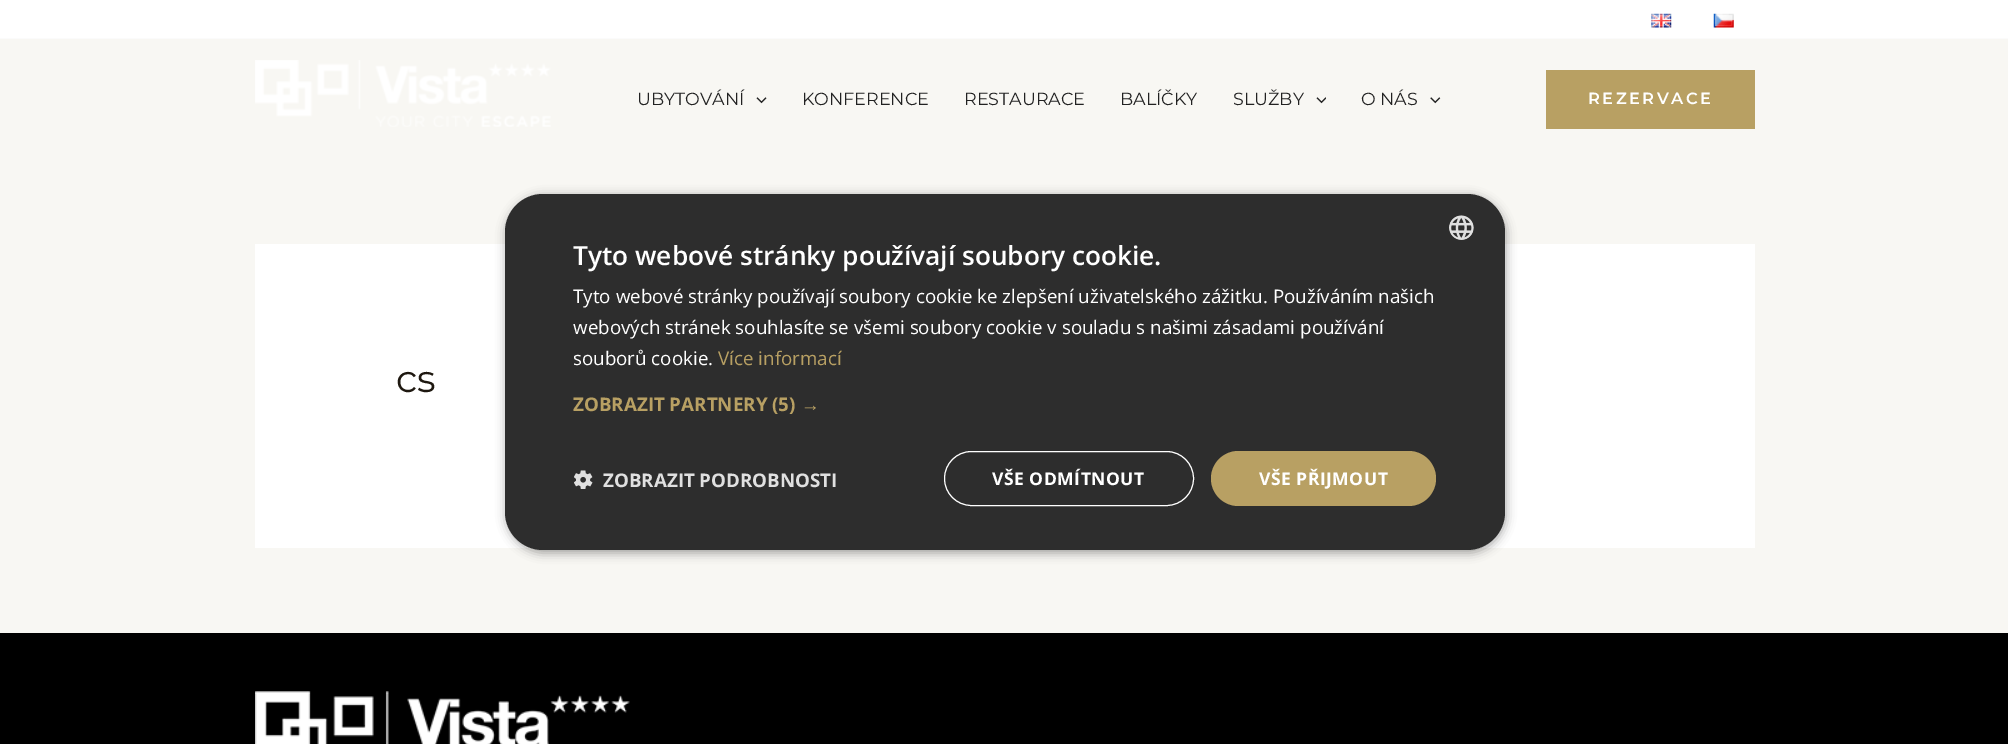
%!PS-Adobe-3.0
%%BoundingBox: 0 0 2008 744
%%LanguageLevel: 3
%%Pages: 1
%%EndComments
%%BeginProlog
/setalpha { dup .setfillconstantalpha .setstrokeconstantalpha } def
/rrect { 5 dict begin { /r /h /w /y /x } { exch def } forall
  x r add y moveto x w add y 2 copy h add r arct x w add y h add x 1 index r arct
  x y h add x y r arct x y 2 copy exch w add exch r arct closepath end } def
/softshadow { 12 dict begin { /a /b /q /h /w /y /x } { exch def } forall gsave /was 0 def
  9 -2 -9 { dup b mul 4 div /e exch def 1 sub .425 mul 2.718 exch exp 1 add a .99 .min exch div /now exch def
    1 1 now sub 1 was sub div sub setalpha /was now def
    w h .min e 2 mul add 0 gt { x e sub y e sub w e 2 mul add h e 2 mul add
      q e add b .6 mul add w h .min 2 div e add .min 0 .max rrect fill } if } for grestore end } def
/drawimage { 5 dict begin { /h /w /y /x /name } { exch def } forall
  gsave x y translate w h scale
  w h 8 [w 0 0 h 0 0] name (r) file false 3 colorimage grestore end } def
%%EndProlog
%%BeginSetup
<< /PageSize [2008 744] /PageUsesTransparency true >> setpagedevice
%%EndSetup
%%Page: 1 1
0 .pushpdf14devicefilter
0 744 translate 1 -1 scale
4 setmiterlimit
0.973 0.969 0.953 setrgbcolor
0 0 2008 744 rectfill
1 setgray
0 0 2008 38 rectfill
0.984 setgray
0 38 2008 1 rectfill
(images/1.raw) 1651 13 21 15 drawimage
(images/2.raw) 1713 13 21 15 drawimage
(images/3.raw) 255 60 296 67 drawimage
(images/4.raw) 756 97 11 7 drawimage
(images/5.raw) 1316 97 10 7 drawimage
(images/6.raw) 1430 97 11 7 drawimage
0.722 0.627 0.388 setrgbcolor
1546 70 209 59 rectfill
1 setgray
255 244 1500 304 rectfill
0 setgray
0 633 2008 111 rectfill
(images/7.raw) 255 691 375 53 drawimage
506 196 1000 357 38 5 0.35 softshadow
0.176 setgray
505 194 1000 356 38 rrect fill
(images/8.raw) 1449 215 25 25 drawimage
(images/9.raw) 574 470 19 19 drawimage
1 setgray
944.5 451.5 249 54 27 rrect stroke
0.722 0.627 0.388 setrgbcolor
1211 451 225 55 27.5 rrect fill
/Montserrat-Regular [17.5 0 0 -17.5 0 0] selectfont
0.133 setgray
637 105 moveto (UBYTOVÁNÍ) show
802 105 moveto (KONFERENCE) show
964 105 moveto (RESTAURACE) show
1120 105 moveto (BALÍČKY) show
1233 105 moveto (SLUŽBY) show
1361 105 moveto (O NÁS) show
/Montserrat-SemiBold [16.25 0 0 -16.25 0 0] selectfont
1 setgray
1588 104 moveto 2.5 0 (REZERVACE) ashow
/Montserrat-Regular [38 0 0 -38 0 0] selectfont
0.118 0.094 0.063 setrgbcolor
396 392 moveto (cs) show
/OpenSans-SemiBold [26.25 0 0 -26.25 0 0] selectfont
1 setgray
573 265 moveto (Tyto webové stránky používají soubory cookie.) show
/OpenSans-Regular [18.75 0 0 -18.75 0 0] selectfont
573 303 moveto (Tyto webové stránky používají soubory cookie ke zlepšení uživatelského zážitku. Používáním našich) show
573 334 moveto (webových stránek souhlasíte se všemi soubory cookie v souladu s našimi zásadami používání) show
573 365 moveto (souborů cookie.) show
0.722 0.627 0.388 setrgbcolor
718 365 moveto (Více informací) show
/OpenSans-Bold [18.75 0 0 -18.75 0 0] selectfont
573 411 moveto (ZOBRAZIT PARTNERY \(5\)) show
/LiberationSans-Bold [18.75 0 0 -18.75 0 0] selectfont
801 411 moveto (→) show
/OpenSans-Bold [18.75 0 0 -18.75 0 0] selectfont
0.878 setgray
603 487 moveto (ZOBRAZIT PODROBNOSTI) show
/OpenSans-Bold [17.5 0 0 -17.5 0 0] selectfont
1 setgray
992 485 moveto 0.5 0 (VŠE ODMÍTNOUT) ashow
1259 485 moveto 0.5 0 (VŠE PŘIJMOUT) ashow
.poppdf14devicefilter showpage
%%EOF
